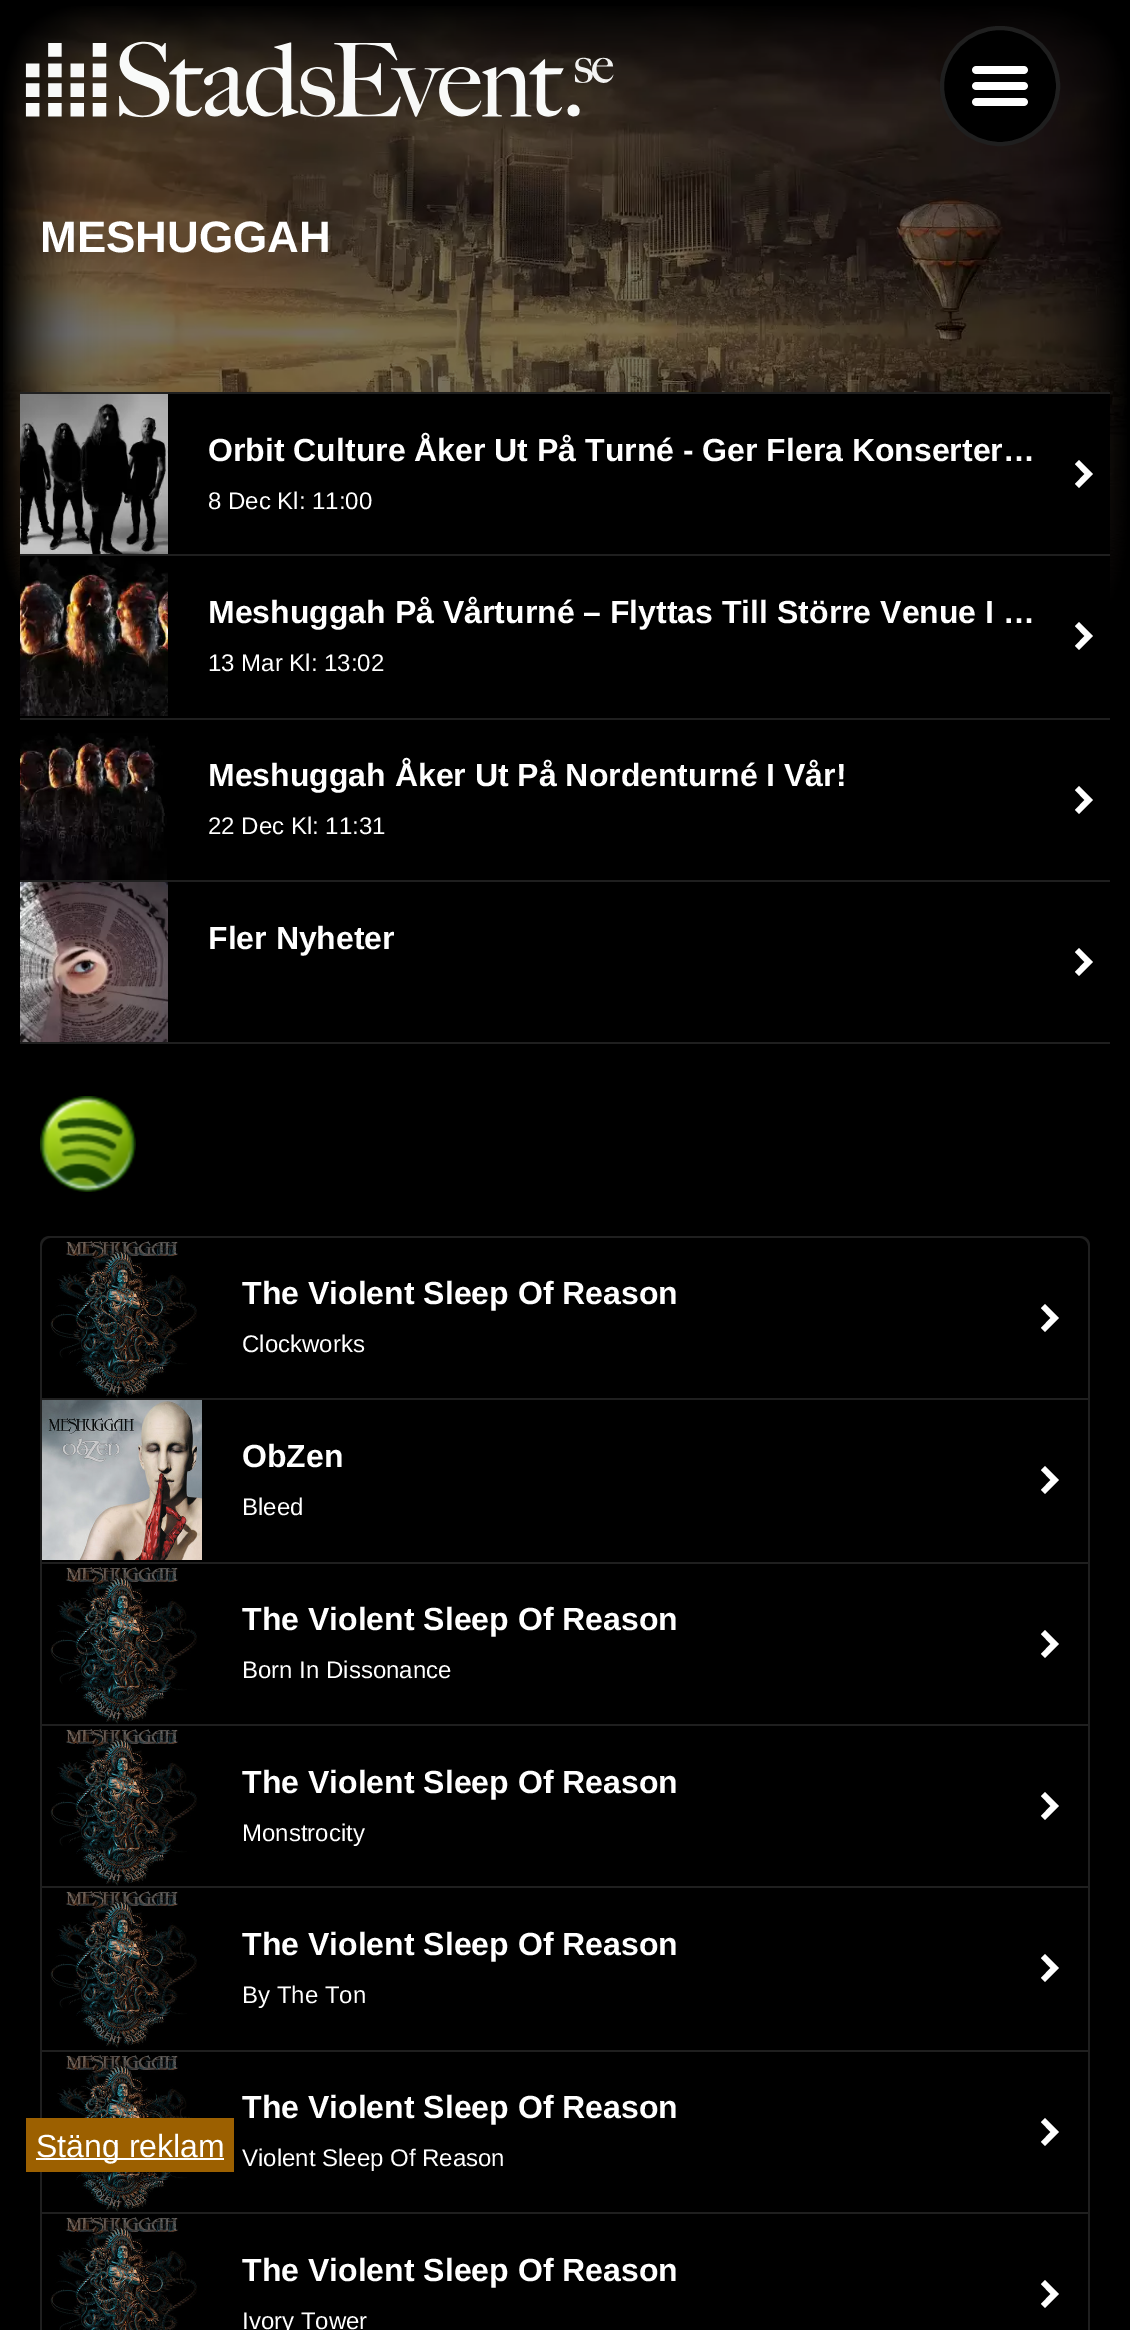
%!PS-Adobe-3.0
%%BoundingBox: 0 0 1130 2330
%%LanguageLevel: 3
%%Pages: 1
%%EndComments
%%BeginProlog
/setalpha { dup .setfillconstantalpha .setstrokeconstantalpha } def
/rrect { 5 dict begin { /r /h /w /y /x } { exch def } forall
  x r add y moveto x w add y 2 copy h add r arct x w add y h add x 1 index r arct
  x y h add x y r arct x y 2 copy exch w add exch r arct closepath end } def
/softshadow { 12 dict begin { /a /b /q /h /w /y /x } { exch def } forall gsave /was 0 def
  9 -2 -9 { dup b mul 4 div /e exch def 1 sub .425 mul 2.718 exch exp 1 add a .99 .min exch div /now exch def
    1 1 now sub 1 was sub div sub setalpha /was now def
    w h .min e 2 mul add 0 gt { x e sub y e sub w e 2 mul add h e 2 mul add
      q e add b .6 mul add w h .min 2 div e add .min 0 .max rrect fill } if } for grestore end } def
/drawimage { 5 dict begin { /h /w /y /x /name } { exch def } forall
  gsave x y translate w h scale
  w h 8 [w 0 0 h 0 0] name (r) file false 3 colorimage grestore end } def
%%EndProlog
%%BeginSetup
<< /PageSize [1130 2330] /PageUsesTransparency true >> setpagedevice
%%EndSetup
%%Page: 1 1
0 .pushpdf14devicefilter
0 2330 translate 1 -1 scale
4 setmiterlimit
0 setgray
0 0 1130 2330 rectfill
(images/1.raw) 3 6 1124 595 drawimage
(images/2.raw) 25 41 589 77 drawimage
newpath 1000 86 58 0 360 arc closepath gsave fill grestore
0.122 setgray
4 setlinewidth
stroke
(images/3.raw) 972 66 56 40 drawimage
gsave
20 134 1090 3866 rectclip
0 setgray
newpath 18 394 moveto 1112 394 lineto 1118 394 1122 398 1122 402 curveto 1122 554 lineto 8 554 lineto 8 402 lineto 8 398 12 394 18 394 curveto closepath fill
grestore
20 392 1090 2 rectfill
(images/4.raw) 20 394 148 160 drawimage
1 setgray
newpath 1075 464 moveto 1084.5 474 lineto 1075 484 lineto 1079 488 lineto 1093 474 lineto 1079 460 lineto closepath fill
gsave
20 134 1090 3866 rectclip
0 setgray
8 558 1114 164 0 3 0.25 softshadow
grestore
0 setgray
20 556 1090 45 rectfill
0.122 setgray
20 554 1090 2 rectfill
(images/5.raw) 20 556 148 160 drawimage
1 setgray
newpath 1075 626 moveto 1084.5 636 lineto 1075 646 lineto 1079 650 lineto 1093 636 lineto 1079 622 lineto closepath fill
0.122 setgray
20 718 1090 2 rectfill
(images/6.raw) 20 733 147 147 drawimage
1 setgray
newpath 1075 790 moveto 1084.5 800 lineto 1075 810 lineto 1079 814 lineto 1093 800 lineto 1079 786 lineto closepath fill
0.122 setgray
20 880 1090 2 rectfill
20 1042 1090 2 rectfill
(images/7.raw) 20 882 148 160 drawimage
1 setgray
newpath 1075 952 moveto 1084.5 962 lineto 1075 972 lineto 1079 976 lineto 1093 962 lineto 1079 948 lineto closepath fill
(images/8.raw) 40 1096 96 96 drawimage
0.122 setgray
newpath 50 1236 moveto 1080 1236 lineto 1086 1236 1090 1240 1090 1246 curveto 1090 1398 lineto 40 1398 lineto 40 1246 lineto 40 1240 44 1236 50 1236 curveto closepath 50 1238 moveto 1080 1238 lineto 1084 1238 1088 1242 1088 1246 curveto 1088 1398 lineto 42 1398 lineto 42 1246 lineto 42 1242 46 1238 50 1238 curveto closepath eofill
(images/9.raw) 50 1241 147 157 drawimage
1 setgray
newpath 1041 1308 moveto 1050.5 1318 lineto 1041 1328 lineto 1045 1332 lineto 1059 1318 lineto 1045 1304 lineto closepath fill
0.122 setgray
40 1398 1050 2 rectfill
1088 1398 2 164 rectfill
40 1398 2 164 rectfill
(images/10.raw) 42 1400 160 160 drawimage
1 setgray
newpath 1041 1470 moveto 1050.5 1480 lineto 1041 1490 lineto 1045 1494 lineto 1059 1480 lineto 1045 1466 lineto closepath fill
0.122 setgray
40 1562 1050 2 rectfill
1088 1562 2 162 rectfill
40 1562 2 162 rectfill
(images/11.raw) 50 1567 147 157 drawimage
1 setgray
newpath 1041 1634 moveto 1050.5 1644 lineto 1041 1654 lineto 1045 1658 lineto 1059 1644 lineto 1045 1630 lineto closepath fill
0.122 setgray
40 1724 1050 2 rectfill
1088 1724 2 162 rectfill
40 1724 2 162 rectfill
(images/12.raw) 50 1729 147 157 drawimage
1 setgray
newpath 1041 1796 moveto 1050.5 1806 lineto 1041 1816 lineto 1045 1820 lineto 1059 1806 lineto 1045 1792 lineto closepath fill
0.122 setgray
40 1886 1050 2 rectfill
1088 1886 2 164 rectfill
40 1886 2 164 rectfill
(images/13.raw) 50 1891 147 157 drawimage
1 setgray
newpath 1041 1958 moveto 1050.5 1968 lineto 1041 1978 lineto 1045 1982 lineto 1059 1968 lineto 1045 1954 lineto closepath fill
0.122 setgray
40 2050 1050 2 rectfill
1088 2050 2 162 rectfill
40 2050 2 162 rectfill
(images/14.raw) 50 2055 147 157 drawimage
1 setgray
newpath 1041 2122 moveto 1050.5 2132 lineto 1041 2142 lineto 1045 2146 lineto 1059 2132 lineto 1045 2118 lineto closepath fill
0.122 setgray
40 2212 1050 2 rectfill
1088 2212 2 118 rectfill
40 2212 2 118 rectfill
(images/15.raw) 50 2217 147 113 drawimage
1 setgray
newpath 1041 2284 moveto 1050.5 2294 lineto 1041 2304 lineto 1045 2308 lineto 1059 2294 lineto 1045 2280 lineto closepath fill
0.612 0.376 0 setrgbcolor
26 2118 208 54 rectfill
1 setgray
36 2158 188 2 rectfill
/LiberationSans-Bold [44 0 0 -44 0 0] selectfont
40 252 moveto (MESHUGGAH) show
/LiberationSans-Bold [32 0 0 -32 0 0] selectfont
208 461 moveto (Orbit Culture Åker Ut På Turné - Ger Flera Konserter…) show
/LiberationSans-Regular [24 0 0 -24 0 0] selectfont
208 509 moveto (8 Dec Kl: 11:00) show
/LiberationSans-Bold [32 0 0 -32 0 0] selectfont
208 623 moveto (Meshuggah På Vårturné – Flyttas Till Större Venue I …) show
/LiberationSans-Regular [24 0 0 -24 0 0] selectfont
208 671 moveto (13 Mar Kl: 13:02) show
/LiberationSans-Bold [32 0 0 -32 0 0] selectfont
208 786 moveto (Meshuggah Åker Ut På Nordenturné I Vår!) show
/LiberationSans-Regular [24 0 0 -24 0 0] selectfont
208 834 moveto (22 Dec Kl: 11:31) show
/LiberationSans-Bold [32 0 0 -32 0 0] selectfont
208 949 moveto (Fler Nyheter) show
242 1304 moveto (The Violent Sleep Of Reason) show
/LiberationSans-Regular [24 0 0 -24 0 0] selectfont
242 1352 moveto (Clockworks) show
/LiberationSans-Bold [32 0 0 -32 0 0] selectfont
242 1467 moveto (ObZen) show
/LiberationSans-Regular [24 0 0 -24 0 0] selectfont
242 1515 moveto (Bleed) show
/LiberationSans-Bold [32 0 0 -32 0 0] selectfont
242 1630 moveto (The Violent Sleep Of Reason) show
/LiberationSans-Regular [24 0 0 -24 0 0] selectfont
242 1678 moveto (Born In Dissonance) show
/LiberationSans-Bold [32 0 0 -32 0 0] selectfont
242 1793 moveto (The Violent Sleep Of Reason) show
/LiberationSans-Regular [24 0 0 -24 0 0] selectfont
242 1841 moveto (Monstrocity) show
/LiberationSans-Bold [32 0 0 -32 0 0] selectfont
242 1955 moveto (The Violent Sleep Of Reason) show
/LiberationSans-Regular [24 0 0 -24 0 0] selectfont
242 2003 moveto (By The Ton) show
/LiberationSans-Bold [32 0 0 -32 0 0] selectfont
242 2118 moveto (The Violent Sleep Of Reason) show
/LiberationSans-Regular [24 0 0 -24 0 0] selectfont
242 2166 moveto (Violent Sleep Of Reason) show
/LiberationSans-Bold [32 0 0 -32 0 0] selectfont
242 2281 moveto (The Violent Sleep Of Reason) show
/LiberationSans-Regular [24 0 0 -24 0 0] selectfont
242 2329 moveto (Ivory Tower) show
/LiberationSans-Regular [32 0 0 -32 0 0] selectfont
36 2157 moveto (Stäng reklam) show
.poppdf14devicefilter showpage
%%EOF
